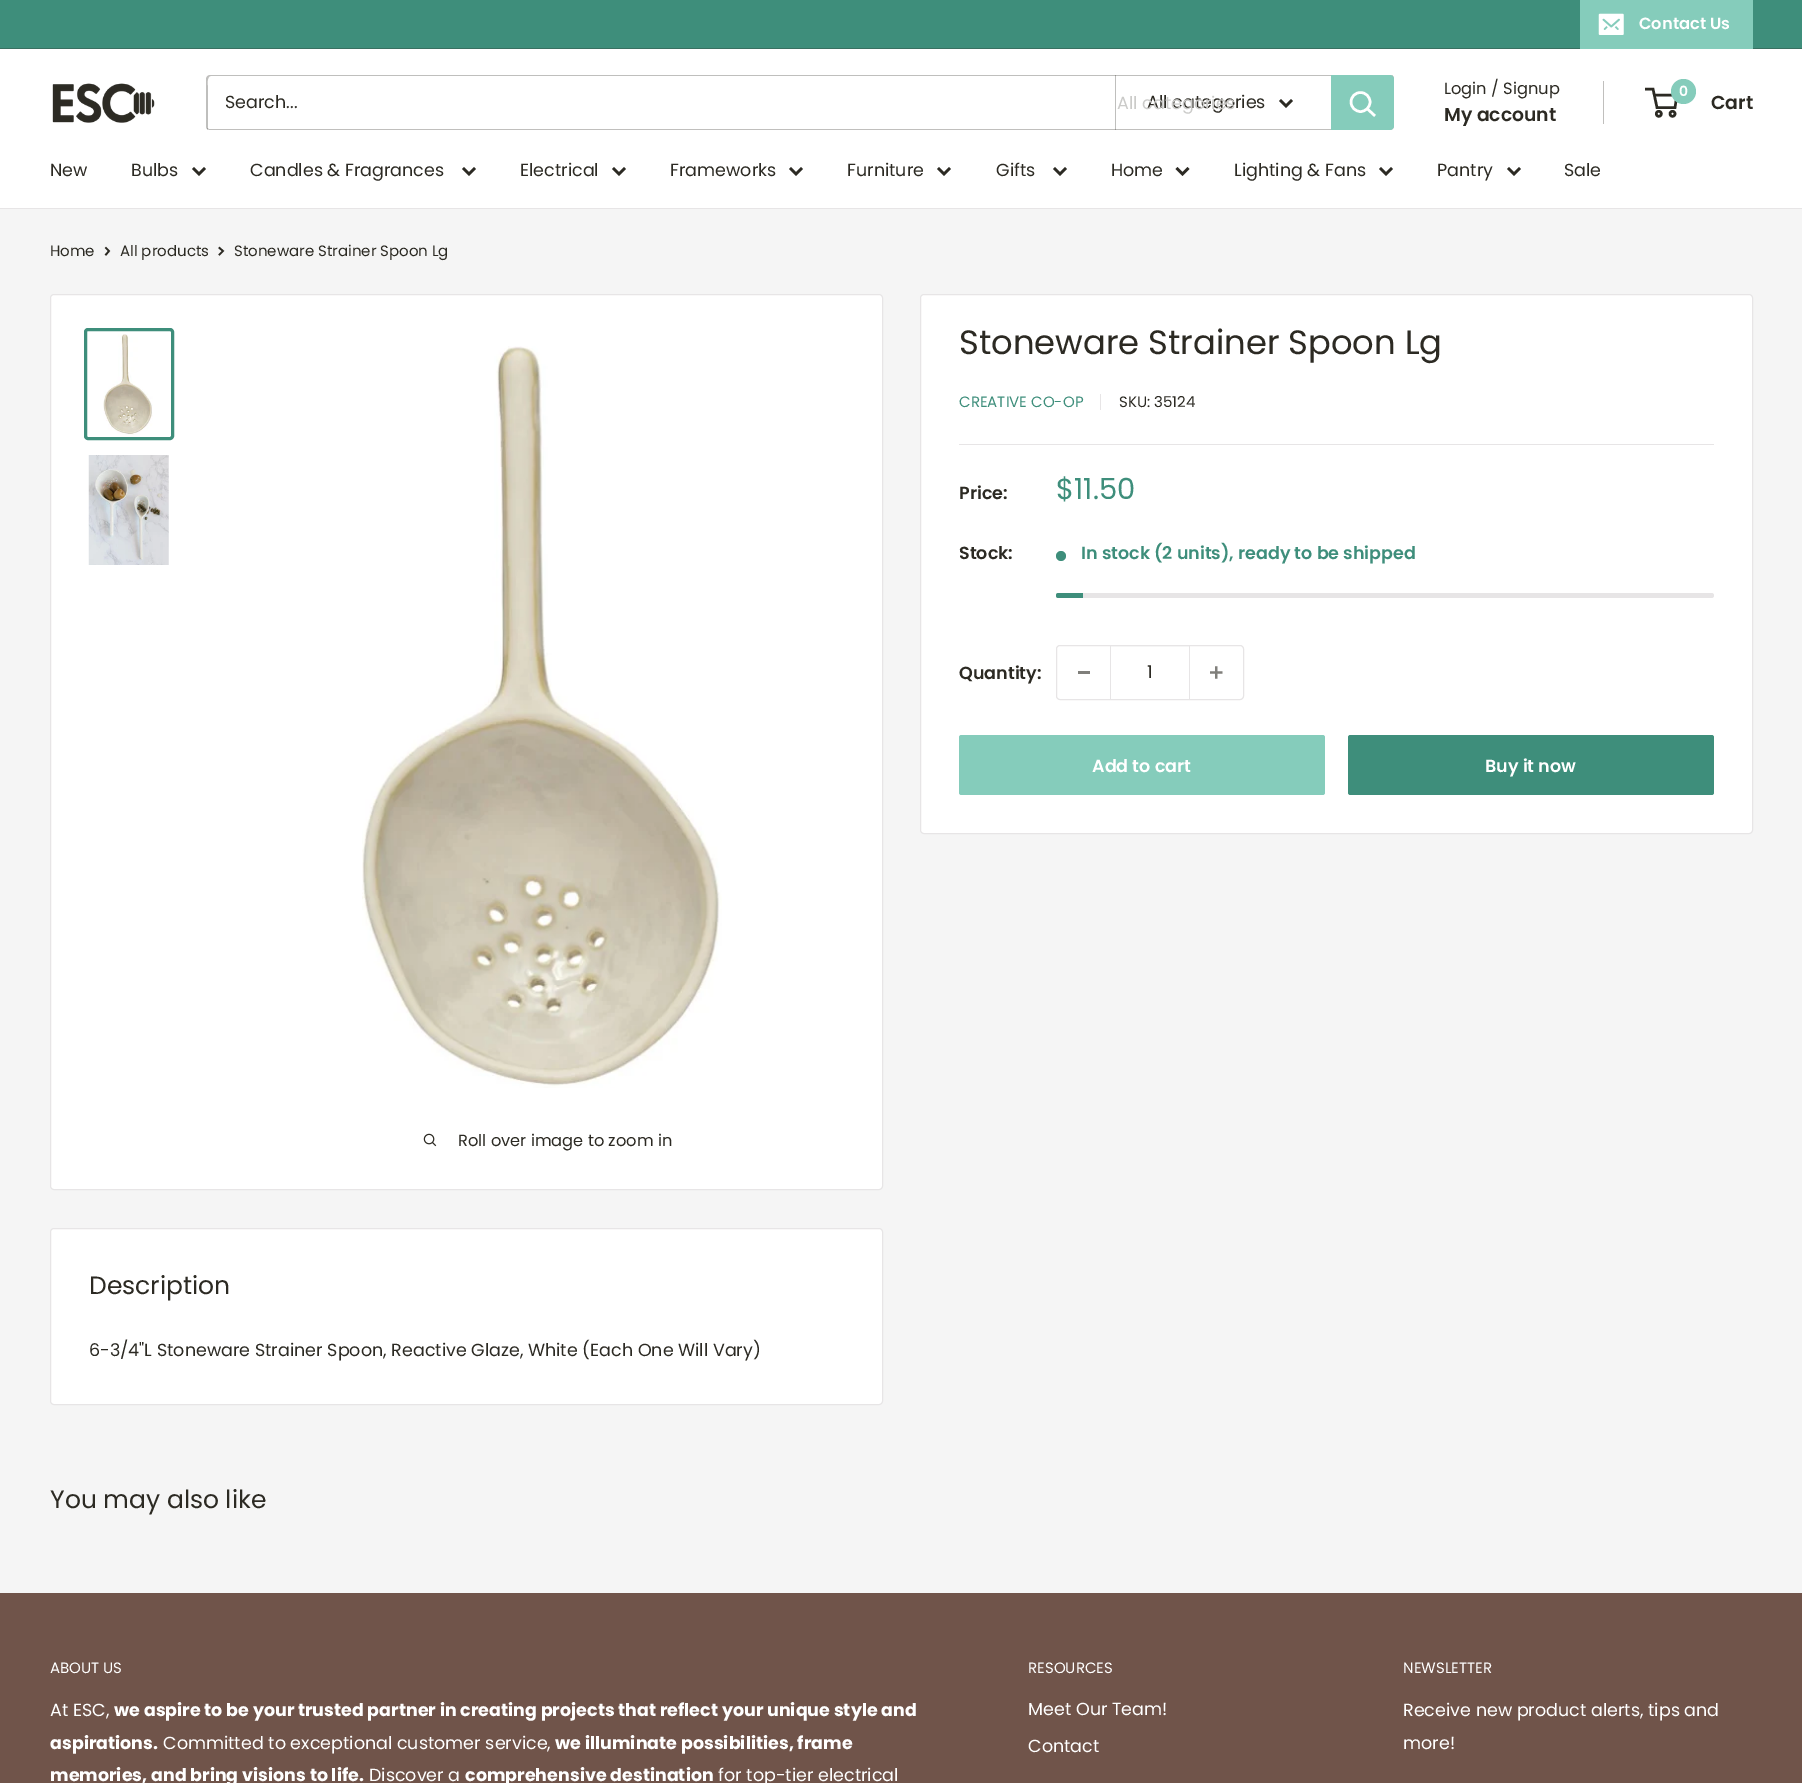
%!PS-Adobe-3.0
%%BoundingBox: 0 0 1802 1783
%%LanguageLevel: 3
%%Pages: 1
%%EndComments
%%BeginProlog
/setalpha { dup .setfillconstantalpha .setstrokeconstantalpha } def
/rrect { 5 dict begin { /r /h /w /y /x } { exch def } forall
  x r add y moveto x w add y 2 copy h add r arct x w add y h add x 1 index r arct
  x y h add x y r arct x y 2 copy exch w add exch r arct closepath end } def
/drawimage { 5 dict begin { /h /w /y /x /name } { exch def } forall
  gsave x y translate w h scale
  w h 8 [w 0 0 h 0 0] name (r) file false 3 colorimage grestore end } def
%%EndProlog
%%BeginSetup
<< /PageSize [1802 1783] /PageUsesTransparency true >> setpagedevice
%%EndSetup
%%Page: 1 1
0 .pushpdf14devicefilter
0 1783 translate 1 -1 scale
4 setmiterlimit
0.961 setgray
0 0 1802 1783 rectfill
0.243 0.557 0.482 setrgbcolor
0 0 1802 48 rectfill
0.224 0.439 0.38 setrgbcolor
0 48 1802 1 rectfill
0.522 0.8 0.733 setrgbcolor
newpath 1580 48 moveto 1580 49 lineto 1753 49 lineto 1753 1 lineto 1752 1 lineto 1752 48 lineto closepath fill
1580 0 173 48 rectfill
(images/1.raw) 1598 13 26 22 drawimage
1 setgray
0 49 1802 159 rectfill
(images/2.raw) 52 83 103 40 drawimage
0.753 0.749 0.741 setrgbcolor
newpath 207 128 moveto 207 129 209 130 210 130 curveto 1390 130 lineto 1392 130 1394 128 1394 126 curveto 1394 79 lineto 1394 77 1393 76 1392 75 curveto 1392 78 lineto 1392 125 lineto 1392 127 1391 129 1389 129 curveto 209 129 lineto closepath fill
0.3 setalpha
0.173 0.165 0.137 setrgbcolor
newpath 211 76 moveto 1391 76 lineto 1393 77 lineto 1393 76 1391 75 1390 75 curveto 210 75 lineto 208 75 206 77 206 79 curveto 206 126 lineto 206 128 207 129 208 130 curveto 208 88 lineto 208 87 206 76 211 76 curveto closepath fill
1115 75 1 55 rectfill
1 setalpha
2.5 setlinewidth
2 setlinecap
newpath 1291 101 moveto 1286 106 lineto 1281 101 lineto stroke
0.522 0.8 0.733 setrgbcolor
newpath 1331 75 moveto 1390 75 lineto 1392 75 1394 77 1394 79 curveto 1394 126 lineto 1394 128 1392 130 1390 130 curveto 1331 130 lineto closepath fill
1 setgray
newpath 1374 115 moveto 1367.5 109 lineto stroke
0 setlinecap
newpath 1360.5 102 9.5 0 360 arc closepath stroke
0.753 0.749 0.741 setrgbcolor
1603 81 1 43 rectfill
0.173 0.165 0.137 setrgbcolor
newpath 1658.8 113.8 2.5 0 360 arc closepath stroke
newpath 1672.5 113.8 2.5 0 360 arc closepath stroke
newpath 1654 95 moveto 1677 95 lineto 1675 107.5 lineto 1657 107.5 lineto 1653 89 lineto 1645 89 lineto stroke
0.522 0.8 0.733 setrgbcolor
newpath 1683.5 91.5 12.5 0 360 arc closepath fill
0.906 0.898 0.902 setrgbcolor
0 208 1802 1 rectfill
0.173 0.165 0.137 setrgbcolor
2 setlinecap
newpath 204 169 moveto 199 174 lineto 194 169 lineto stroke
newpath 474 169 moveto 469 174 lineto 464 169 lineto stroke
newpath 624 169 moveto 619 174 lineto 614 169 lineto stroke
newpath 801 169 moveto 796 174 lineto 791 169 lineto stroke
newpath 949 169 moveto 944 174 lineto 939 169 lineto stroke
newpath 1065 169 moveto 1060 174 lineto 1055 169 lineto stroke
newpath 1187.5 169 moveto 1182.5 174 lineto 1177.5 169 lineto stroke
newpath 1391 169 moveto 1386 174 lineto 1381 169 lineto stroke
newpath 1519 169 moveto 1514 174 lineto 1509 169 lineto stroke
1.7 setlinewidth
newpath 106 248 moveto 109 251 lineto 106 254.5 lineto stroke
newpath 219.5 248 moveto 223 251 lineto 219.5 254.5 lineto stroke
1 setgray
920.5 294.5 832 539 3.5 rrect gsave fill grestore
0.906 0.898 0.902 setrgbcolor
1 setlinewidth
0 setlinecap
stroke
1100 394 1 16 rectfill
959 444 755 1 rectfill
0.243 0.557 0.482 setrgbcolor
newpath 1061 556 5 0 360 arc closepath fill
0.906 0.898 0.902 setrgbcolor
1056 593 658 5 2.5 rrect fill
0.243 0.557 0.482 setrgbcolor
newpath 1058.5 593 moveto 1083 593 lineto 1083 598 lineto 1058.5 598 lineto 1057 598 1056 597 1056 595.5 curveto 1056 594 1057 593 1058.5 593 curveto closepath fill
0.906 0.898 0.902 setrgbcolor
1056.5 645.5 187 54 3.5 rrect stroke
0.502 0.498 0.482 setrgbcolor
1078 671 12 3 rectfill
0.961 setgray
1111 646 78 1 rectfill
0.906 0.898 0.902 setrgbcolor
1189 646 1 53 rectfill
1110 646 1 53 rectfill
(images/3.raw) 1210 666 13 13 drawimage
0.522 0.8 0.733 setrgbcolor
959 735 366 60 2.5 rrect fill
0.243 0.557 0.482 setrgbcolor
1348 735 366 60 2.5 rrect fill
1 setgray
50.5 294.5 832 895 3.5 rrect gsave fill grestore
0.906 0.898 0.902 setrgbcolor
stroke
0.243 0.557 0.482 setrgbcolor
3 setlinewidth
85.5 329.5 87 109 2.5 rrect stroke
(images/4.raw) 103 334 50 101 drawimage
(images/5.raw) 88 455 81 110 drawimage
(images/6.raw) 362 346 360 742 drawimage
(images/7.raw) 423 1133 14 14 drawimage
1 setgray
50.5 1228.5 832 176 3.5 rrect gsave fill grestore
0.906 0.898 0.902 setrgbcolor
1 setlinewidth
stroke
0.439 0.329 0.29 setrgbcolor
0 1593 1802 190 rectfill
/Poppins-SemiBold [16.25 0 0 -16.25 0 0] selectfont
1 setgray
1639 29 moveto (Contact Us) show
/Poppins-Regular [17.5 0 0 -17.5 0 0] selectfont
0.173 0.165 0.137 setrgbcolor
225 108 moveto (Search...) show
1147 108 moveto (All categories) show
0.796 0.796 0.788 setrgbcolor
1117 109 moveto (All categories) show
/Poppins-Regular [16.25 0 0 -16.25 0 0] selectfont
0.173 0.165 0.137 setrgbcolor
1444 94 moveto (Login / Signup) show
/Poppins-SemiBold [18.75 0 0 -18.75 0 0] selectfont
1444 121 moveto (My account) show
/Poppins-SemiBold [14 0 0 -14 0 0] selectfont
1 setgray
1679 96 moveto (0) show
/Poppins-SemiBold [18.75 0 0 -18.75 0 0] selectfont
0.173 0.165 0.137 setrgbcolor
1711 109 moveto (Cart) show
/Poppins-Regular [17.5 0 0 -17.5 0 0] selectfont
50 176 moveto (New) show
131 176 moveto (Bulbs) show
250 176 moveto (Candles & Fragrances) show
520 176 moveto (Electrical) show
670 176 moveto (Frameworks) show
847 176 moveto (Furniture) show
996 176 moveto (Gifts) show
1111 176 moveto (Home) show
1234 176 moveto (Lighting & Fans) show
1437 176 moveto (Pantry) show
1564 176 moveto (Sale) show
/Poppins-Regular [15 0 0 -15 0 0] selectfont
50 256 moveto (Home) show
120 256 moveto (All products) show
234 256 moveto (Stoneware Strainer Spoon Lg) show
/Poppins-Regular [33.75 0 0 -33.75 0 0] selectfont
959 354 moveto (Stoneware Strainer Spoon Lg) show
/Poppins-Regular [15 0 0 -15 0 0] selectfont
0.243 0.557 0.482 setrgbcolor
959 407 moveto (CREATIVE CO-OP) show
0.173 0.165 0.137 setrgbcolor
1119 407 moveto (SKU: 35124) show
/Poppins-SemiBold [17.5 0 0 -17.5 0 0] selectfont
959 499 moveto (Price:) show
/Poppins-Regular [29 0 0 -29 0 0] selectfont
0.243 0.557 0.482 setrgbcolor
1056 499 moveto ($11.50) show
/Poppins-SemiBold [17.5 0 0 -17.5 0 0] selectfont
0.173 0.165 0.137 setrgbcolor
959 559 moveto (Stock:) show
0.243 0.557 0.482 setrgbcolor
1081 559 moveto (In stock \(2 units\), ready to be shipped) show
0.173 0.165 0.137 setrgbcolor
959 679 moveto (Quantity:) show
/Poppins-Regular [17.5 0 0 -17.5 0 0] selectfont
1147 678 moveto (1) show
/Poppins-SemiBold [17.5 0 0 -17.5 0 0] selectfont
1 setgray
1092 772 moveto (Add to cart) show
1485 772 moveto (Buy it now) show
/Poppins-Regular [16.25 0 0 -16.25 0 0] selectfont
0.173 0.165 0.137 setrgbcolor
458 1146 moveto (Roll over image to zoom in) show
/Poppins-Regular [25 0 0 -25 0 0] selectfont
89 1294 moveto (Description) show
/Poppins-Regular [17.5 0 0 -17.5 0 0] selectfont
89 1356 moveto (6-3/4"L Stoneware Strainer Spoon, Reactive Glaze, White \(Each One Will Vary\)) show
/Poppins-Regular [25 0 0 -25 0 0] selectfont
50 1508 moveto (You may also like) show
/Poppins-Regular [15 0 0 -15 0 0] selectfont
1 setgray
50 1673 moveto (ABOUT US) show
/Poppins-Regular [17.5 0 0 -17.5 0 0] selectfont
50 1716 moveto (At ESC,) show
/Poppins-Bold [17.5 0 0 -17.5 0 0] selectfont
114 1716 moveto (we aspire to be your trusted partner in creating projects that reflect your unique style and) show
50 1749 moveto (aspirations.) show
/Poppins-Regular [17.5 0 0 -17.5 0 0] selectfont
163 1749 moveto (Committed to exceptional customer service,) show
/Poppins-Bold [17.5 0 0 -17.5 0 0] selectfont
555 1749 moveto (we illuminate possibilities, frame) show
50 1781 moveto (memories, and bring visions to life.) show
/Poppins-Regular [17.5 0 0 -17.5 0 0] selectfont
369 1781 moveto (Discover a) show
/Poppins-Bold [17.5 0 0 -17.5 0 0] selectfont
465 1781 moveto (comprehensive destination) show
/Poppins-Regular [17.5 0 0 -17.5 0 0] selectfont
718 1781 moveto (for top-tier electrical) show
/Poppins-Regular [15 0 0 -15 0 0] selectfont
1028 1673 moveto (RESOURCES) show
/Poppins-Regular [17.5 0 0 -17.5 0 0] selectfont
1028 1715 moveto (Meet Our Team!) show
1028 1752 moveto (Contact) show
/Poppins-Regular [15 0 0 -15 0 0] selectfont
1403 1673 moveto (NEWSLETTER) show
/Poppins-Regular [17.5 0 0 -17.5 0 0] selectfont
1403 1716 moveto (Receive new product alerts, tips and) show
1403 1749 moveto (more!) show
.poppdf14devicefilter showpage
%%EOF
